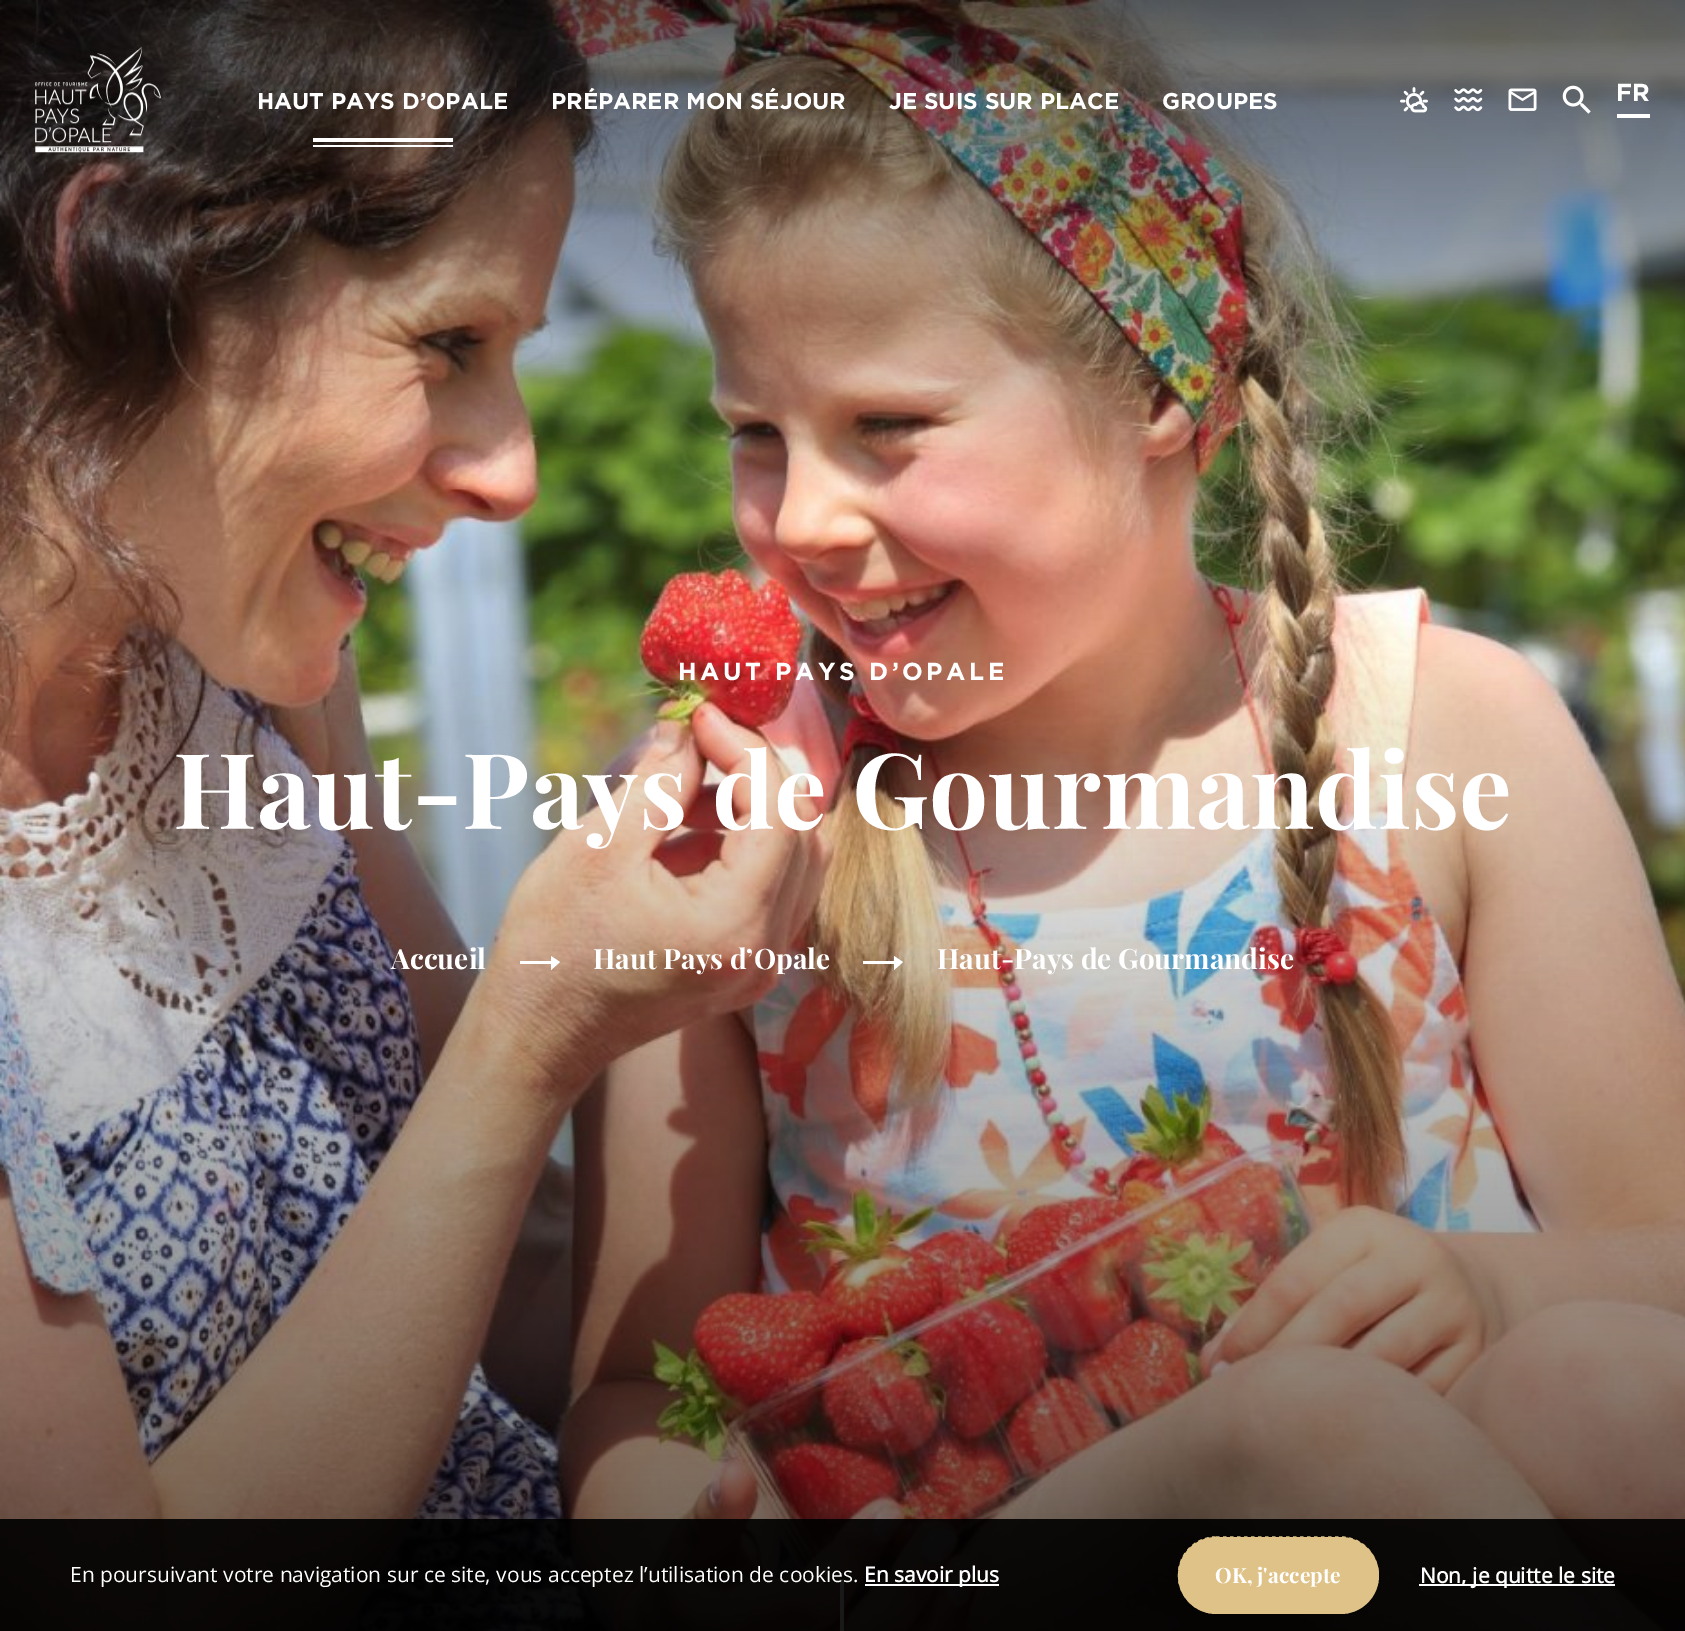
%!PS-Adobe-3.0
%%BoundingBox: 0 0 1685 1631
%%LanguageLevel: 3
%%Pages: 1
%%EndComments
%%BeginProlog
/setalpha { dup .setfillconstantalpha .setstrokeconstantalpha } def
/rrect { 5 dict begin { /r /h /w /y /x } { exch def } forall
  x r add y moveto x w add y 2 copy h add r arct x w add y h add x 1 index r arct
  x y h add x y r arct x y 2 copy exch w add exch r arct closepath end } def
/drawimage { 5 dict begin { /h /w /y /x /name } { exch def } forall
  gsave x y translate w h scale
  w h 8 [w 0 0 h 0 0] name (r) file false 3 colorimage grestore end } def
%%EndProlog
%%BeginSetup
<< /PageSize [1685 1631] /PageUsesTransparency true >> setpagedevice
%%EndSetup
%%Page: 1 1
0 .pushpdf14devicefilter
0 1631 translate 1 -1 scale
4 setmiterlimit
1 setgray
0 0 1685 1631 rectfill
(images/6.raw) 0 0 1685 1631 drawimage
(images/1.raw) 35 47 126 106 drawimage
313 138 140 4 rectfill
313 145 140 2 rectfill
(images/2.raw) 1400 87 28 26 drawimage
(images/3.raw) 1454 88 29 24 drawimage
(images/4.raw) 1508 88 29 23 drawimage
(images/5.raw) 1562 85 29 29 drawimage
1617 114 33 4 rectfill
newpath 551 961 moveto 520 961 lineto 520 964 lineto 551 964 lineto 551 970 lineto 560 962 lineto 551 956 lineto closepath fill
newpath 894 961 moveto 863 961 lineto 863 964 lineto 894 964 lineto 894 970 lineto 903 962 lineto 894 956 lineto closepath fill
840 1579 4 52 rectfill
0.9 setalpha
0 setgray
0 1519 1685 112 rectfill
1 setalpha
1 setgray
865 1584 134 2 rectfill
0.875 0.761 0.529 setrgbcolor
1178 1537 201 77 38.5 rrect fill
3.5 setlinewidth
[3.5 3.5] 0 setdash
newpath 1216 1538 moveto 1340.5 1538 lineto 1361 1538 1377 1554.5 1377 1575 curveto 1377 1595.5 1361 1612 1340.5 1612 curveto 1216 1612 lineto 1196 1612 1179.5 1595.5 1179.5 1575 curveto 1179.5 1554.5 1196 1538 1216 1538 curveto closepath stroke
1 setgray
1419 1584 196 2 rectfill
/Gotham-Bold [22.75 0 0 -22.75 0 0] selectfont
257 109 moveto (HAUT PAYS D’OPALE) show
551 109 moveto (PRÉPARER MON SÉJOUR) show
889 109 moveto (JE SUIS SUR PLACE) show
1162 109 moveto (GROUPES) show
/Gotham-Bold [24.5 0 0 -24.5 0 0] selectfont
1616 101 moveto (FR) show
678 680 moveto 3.5 0 (HAUT PAYS D’OPALE) ashow
/PlayfairDisplay-Bold [105 0 0 -105 0 0] selectfont
173 829 moveto (Haut-Pays de Gourmandise) show
/PlayfairDisplay-Bold [28 0 0 -28 0 0] selectfont
391 969 moveto (Accueil) show
593 969 moveto (Haut Pays d’Opale) show
937 969 moveto (Haut-Pays de Gourmandise) show
/OpenSans-Regular [21 0 0 -21 0 0] selectfont
70 1582 moveto (En poursuivant votre navigation sur ce site, vous acceptez l’utilisation de cookies.) show
/OpenSans-Bold [21 0 0 -21 0 0] selectfont
864 1582 moveto (En savoir plus) show
/PlayfairDisplay-Bold [21 0 0 -21 0 0] selectfont
1215 1583 moveto (OK, j'accepte) show
/OpenSans-Bold [21 0 0 -21 0 0] selectfont
1420 1583 moveto (Non, je quitte le site) show
.poppdf14devicefilter showpage
%%EOF
